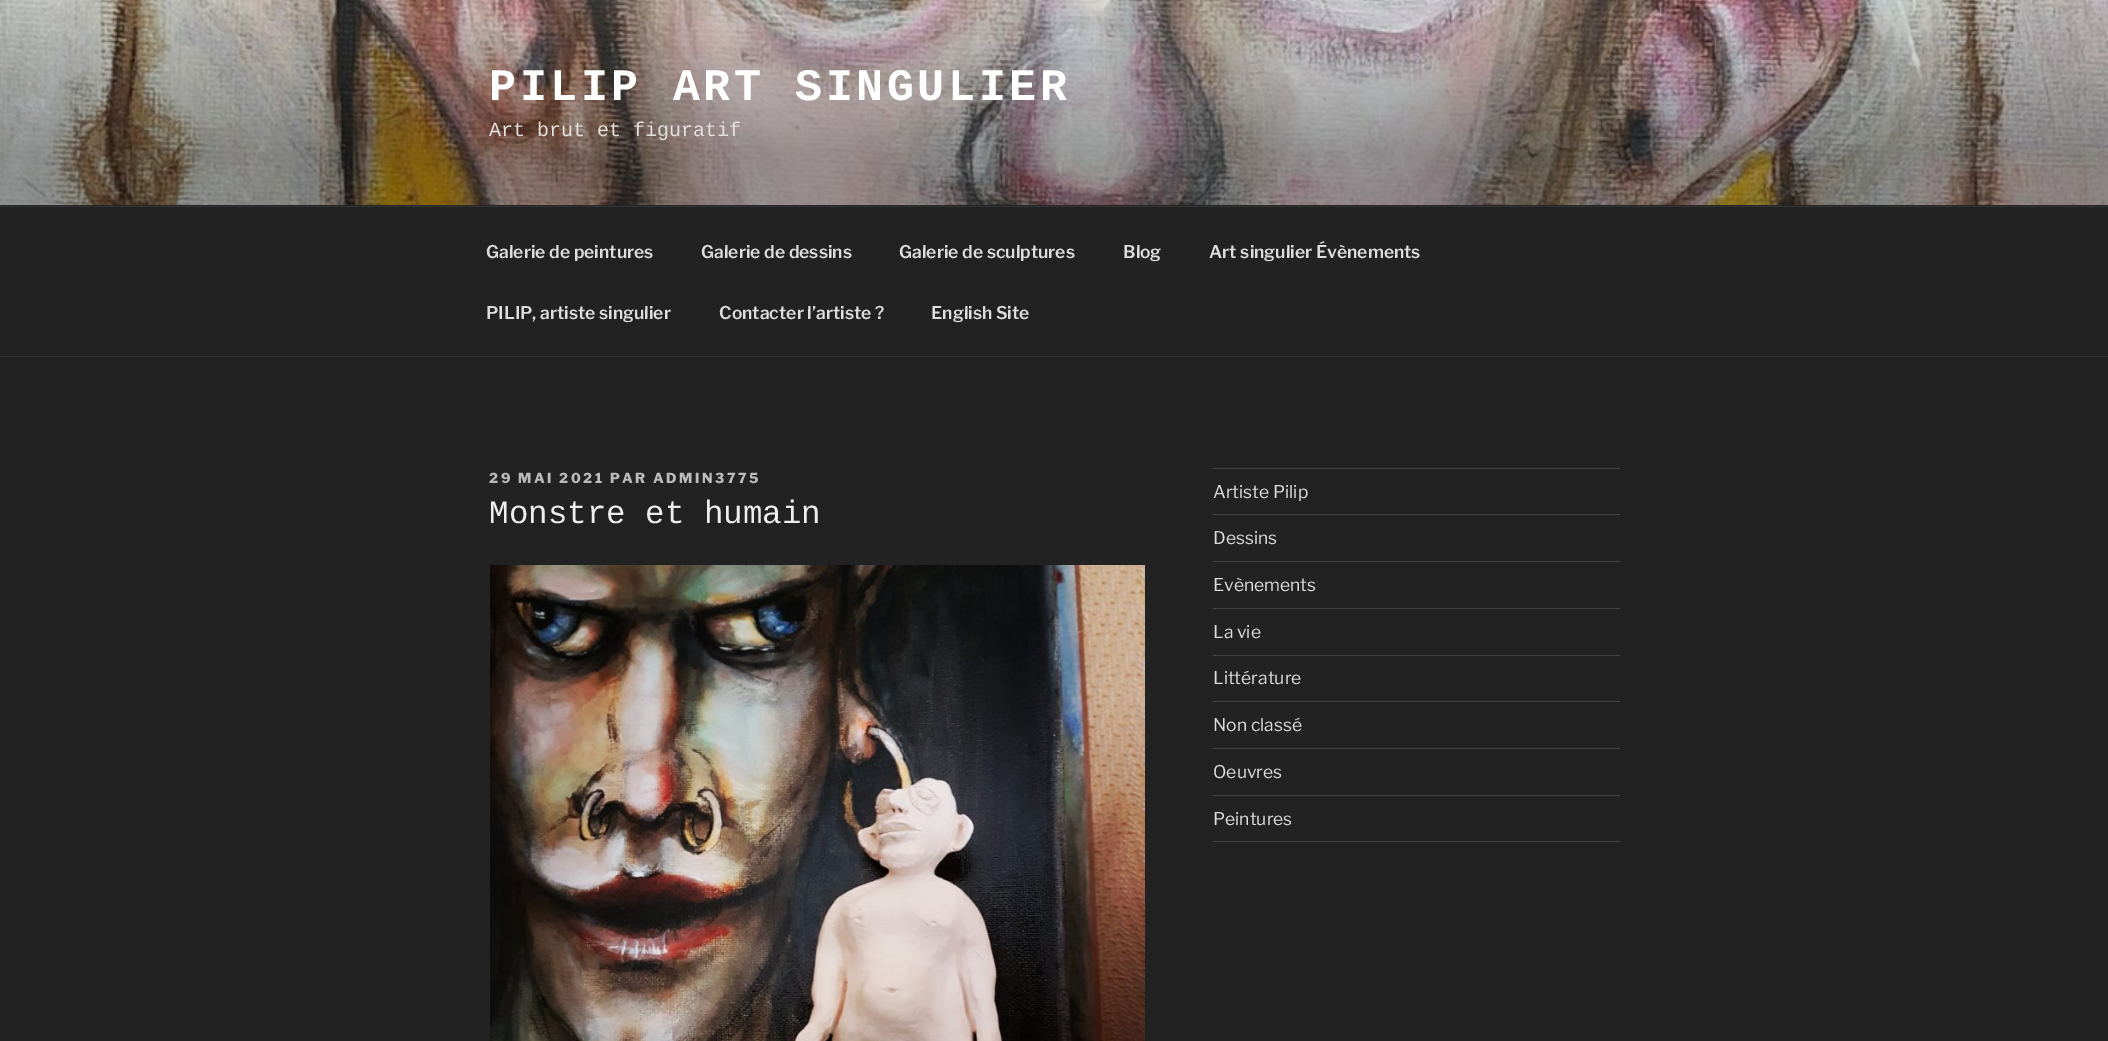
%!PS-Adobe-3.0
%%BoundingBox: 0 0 2108 1041
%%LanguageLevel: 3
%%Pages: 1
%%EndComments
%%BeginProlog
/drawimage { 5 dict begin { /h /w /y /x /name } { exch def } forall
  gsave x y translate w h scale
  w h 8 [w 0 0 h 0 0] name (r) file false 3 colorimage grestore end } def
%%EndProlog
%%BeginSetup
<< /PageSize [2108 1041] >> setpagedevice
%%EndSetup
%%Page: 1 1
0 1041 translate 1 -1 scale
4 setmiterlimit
0.133 setgray
0 0 2108 1041 rectfill
0.149 setgray
0 205 2108 1 rectfill
(images/1.raw) 0 0 2108 205 drawimage
0.2 setgray
0 206 2108 1 rectfill
0 356 2108 1 rectfill
(images/2.raw) 490 565 655 476 drawimage
0.267 setgray
1213 468 407 1 rectfill
1213 514 407 1 rectfill
1213 561 407 1 rectfill
1213 608 407 1 rectfill
1213 655 407 1 rectfill
1213 701 407 1 rectfill
1213 748 407 1 rectfill
1213 795 407 1 rectfill
1213 841 407 1 rectfill
/LiberationMono-Bold [45 0 0 -45 0 0] selectfont
1 setgray
489 100 moveto 3.6 0 (PILIP ART SINGULIER) ashow
/LiberationMono-Regular [20 0 0 -20 0 0] selectfont
0.894 0.878 0.871 setrgbcolor
489 136 moveto (Art brut et figuratif) show
/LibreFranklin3-Thin [17.5 0 0 -17.5 0 0] selectfont
0.867 setgray
486 258 moveto (Galerie de peintures) show
701 258 moveto (Galerie de dessins) show
899 258 moveto (Galerie de sculptures) show
1123 258 moveto (Blog) show
1209 258 moveto (Art singulier Évènements) show
486 319 moveto (PILIP, artiste singulier) show
719 319 moveto (Contacter l’artiste ?) show
931 319 moveto (English Site) show
/LibreFranklin-Thin [13.75 0 0 -13.75 0 0] selectfont
0.733 setgray
489 483 moveto 2.5 0 (29 MAI 2021 PAR ADMIN3775) ashow
/LiberationMono-Regular [32.5 0 0 -32.5 0 0] selectfont
0.933 setgray
489 523 moveto (Monstre et humain) show
/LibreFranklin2-Thin [17.5 0 0 -17.5 0 0] selectfont
0.867 setgray
1213 498 moveto (Artiste Pilip) show
1213 544 moveto (Dessins) show
1213 591 moveto (Evènements) show
1213 638 moveto (La vie) show
1213 684 moveto (Littérature) show
1213 731 moveto (Non classé) show
1213 778 moveto (Oeuvres) show
1213 825 moveto (Peintures) show
showpage
%%EOF
